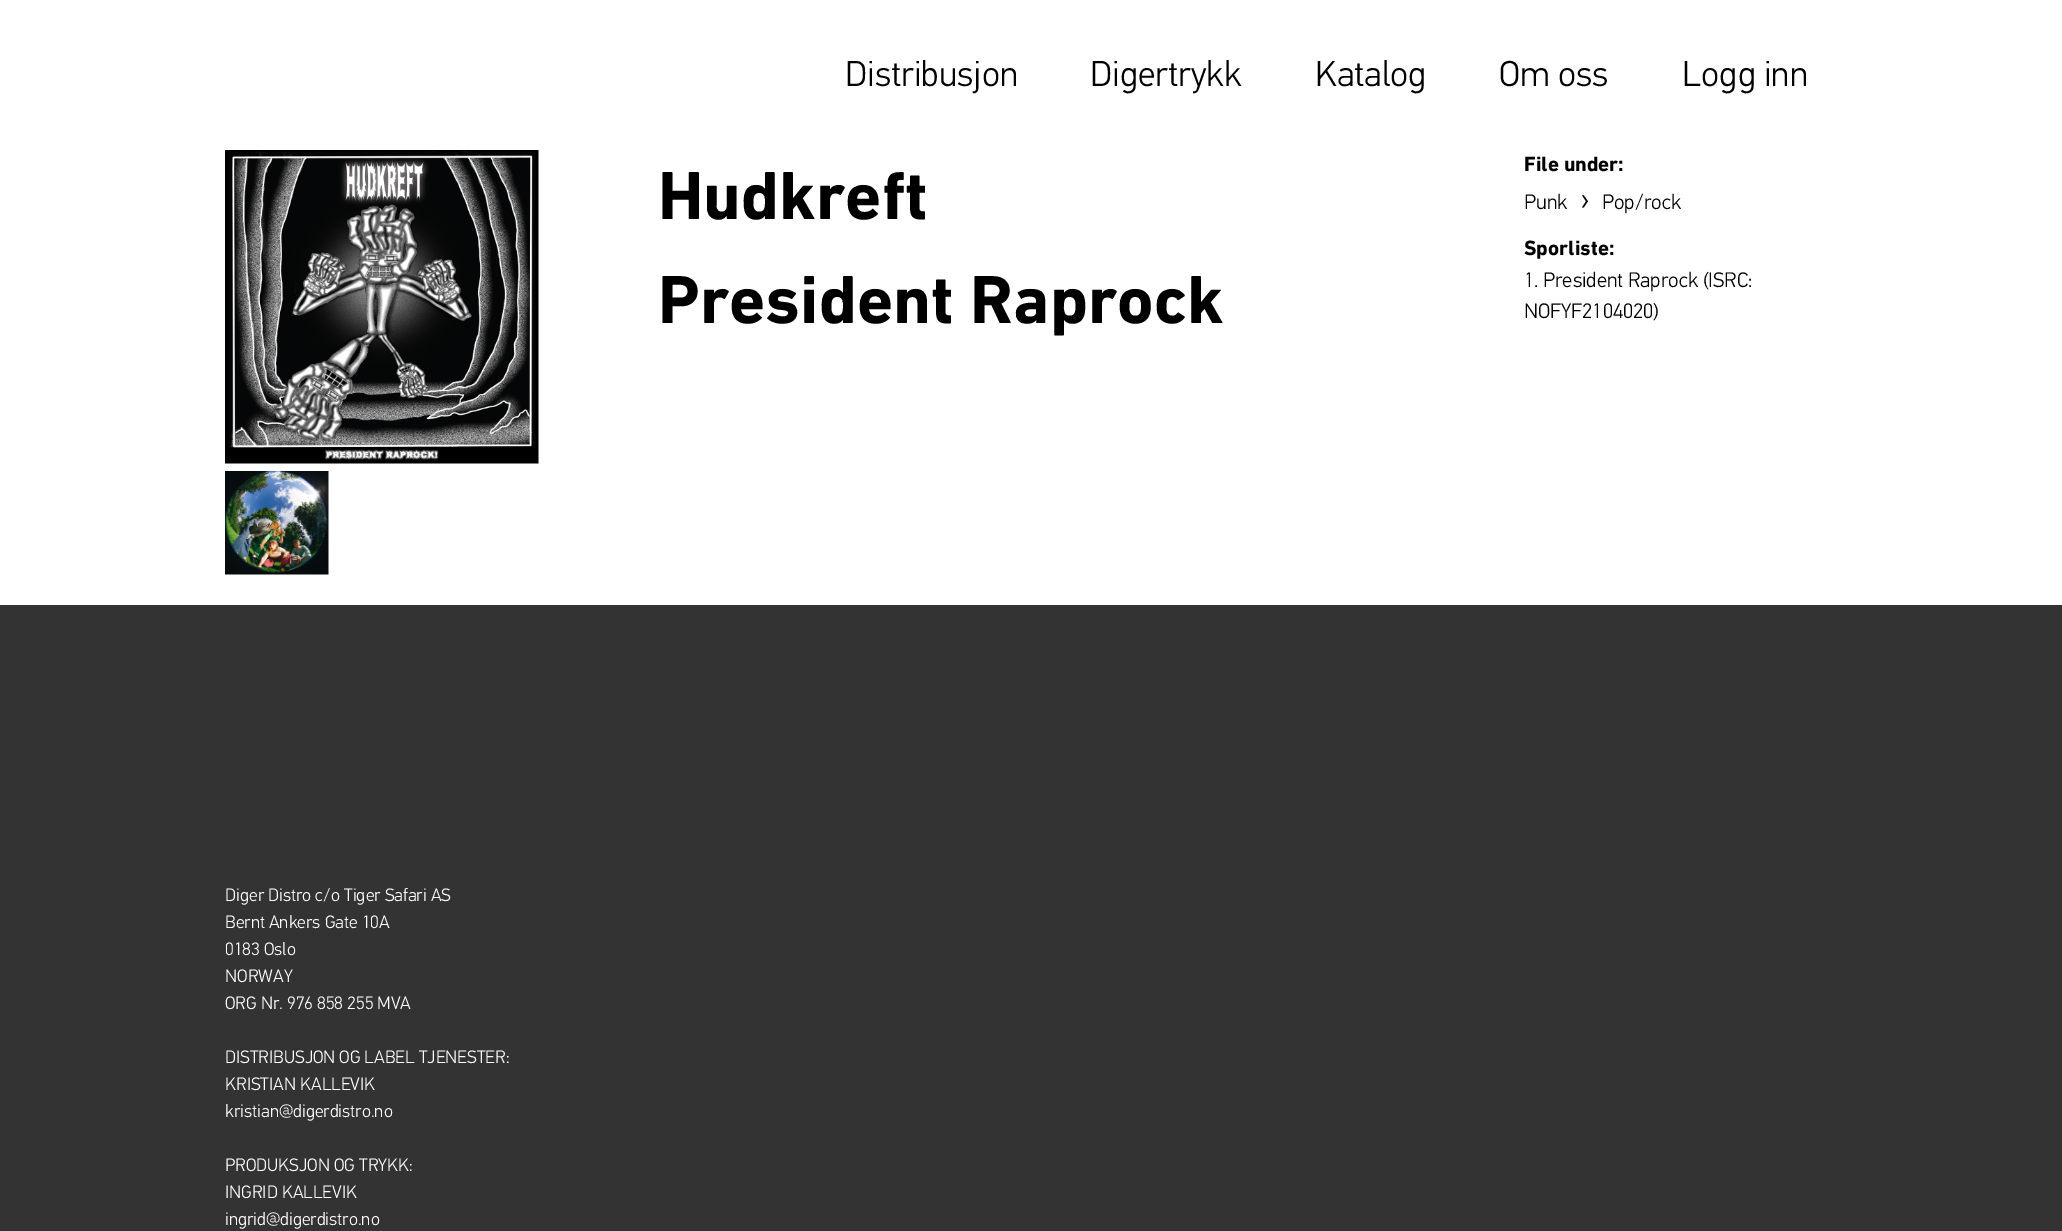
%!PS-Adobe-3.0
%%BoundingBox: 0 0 2062 1231
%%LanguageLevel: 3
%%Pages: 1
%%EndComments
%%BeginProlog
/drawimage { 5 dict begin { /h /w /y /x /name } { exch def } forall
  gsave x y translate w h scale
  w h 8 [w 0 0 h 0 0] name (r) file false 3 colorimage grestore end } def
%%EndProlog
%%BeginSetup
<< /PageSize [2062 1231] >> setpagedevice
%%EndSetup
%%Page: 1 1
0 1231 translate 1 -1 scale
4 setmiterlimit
1 setgray
0 0 2062 1231 rectfill
(images/1.raw) 225 150 314 314 drawimage
(images/2.raw) 225 471 104 104 drawimage
0.2 setgray
0 605 2062 626 rectfill
/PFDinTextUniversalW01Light-Light [36 0 0 -36 0 0] selectfont
0 setgray
845 86 moveto (Distribusjon) show
1090 86 moveto (Digertrykk) show
1315 86 moveto (Katalog) show
1499 86 moveto (Om oss) show
1682 86 moveto (Logg inn) show
/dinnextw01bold-Bold [69 0 0 -69 0 0] selectfont
658 219 moveto (Hudkreft) show
658 323 moveto (President Raprock) show
/dinnextw01bold-Bold [21 0 0 -21 0 0] selectfont
1524 171 moveto (File under:) show
/PFDinTextUniversalW01Light-Light [21 0 0 -21 0 0] selectfont
1524 209 moveto (Punk) show
/PFDinTextUniversalW01Light-Light [34 0 0 -34 0 0] selectfont
1580 209 moveto (›) show
/PFDinTextUniversalW01Light-Light [21 0 0 -21 0 0] selectfont
1602 209 moveto (Pop/rock) show
/dinnextw01bold-Bold [21 0 0 -21 0 0] selectfont
1524 255 moveto (Sporliste:) show
/PFDinTextUniversalW01Light-Light [21 0 0 -21 0 0] selectfont
1524 287 moveto (1. President Raprock \(ISRC:) show
1524 318 moveto (NOFYF2104020\)) show
/PFDinTextUniversalW01Light-Light [18 0 0 -18 0 0] selectfont
1 setgray
225 901 moveto (Diger Distro c/o Tiger Safari AS) show
225 928 moveto (Bernt Ankers Gate 10A) show
225 955 moveto (0183 Oslo) show
225 982 moveto (NORWAY) show
225 1009 moveto (ORG Nr. 976 858 255 MVA) show
225 1063 moveto (DISTRIBUSJON OG LABEL TJENESTER:) show
225 1090 moveto (KRISTIAN KALLEVIK) show
225 1117 moveto (kristian@digerdistro.no) show
225 1171 moveto (PRODUKSJON OG TRYKK:) show
225 1198 moveto (INGRID KALLEVIK) show
225 1225 moveto (ingrid@digerdistro.no) show
showpage
%%EOF
